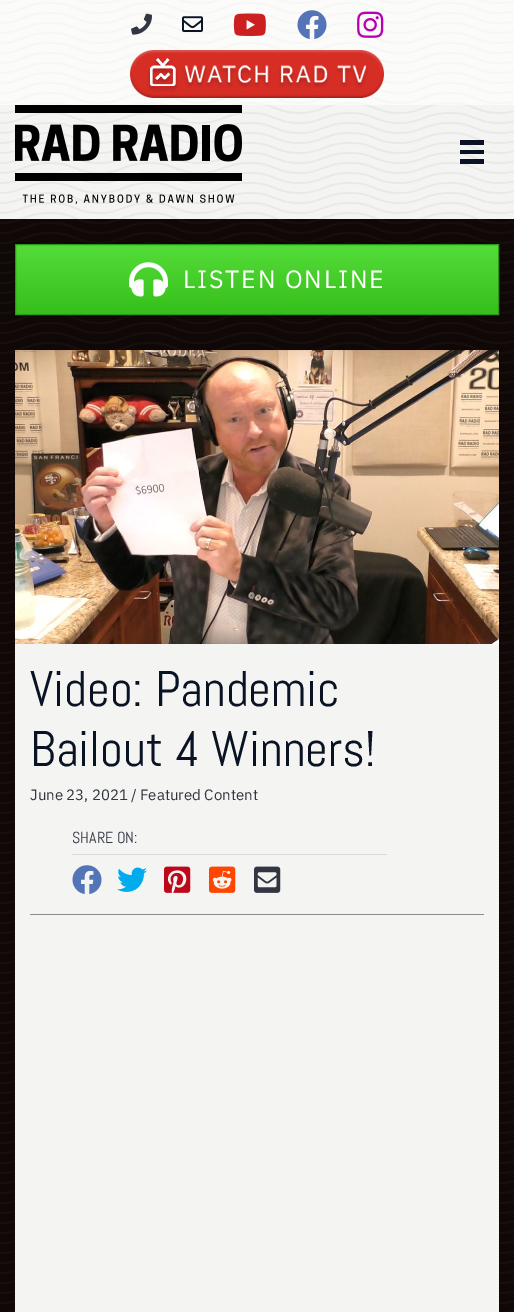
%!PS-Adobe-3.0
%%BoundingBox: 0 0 514 1312
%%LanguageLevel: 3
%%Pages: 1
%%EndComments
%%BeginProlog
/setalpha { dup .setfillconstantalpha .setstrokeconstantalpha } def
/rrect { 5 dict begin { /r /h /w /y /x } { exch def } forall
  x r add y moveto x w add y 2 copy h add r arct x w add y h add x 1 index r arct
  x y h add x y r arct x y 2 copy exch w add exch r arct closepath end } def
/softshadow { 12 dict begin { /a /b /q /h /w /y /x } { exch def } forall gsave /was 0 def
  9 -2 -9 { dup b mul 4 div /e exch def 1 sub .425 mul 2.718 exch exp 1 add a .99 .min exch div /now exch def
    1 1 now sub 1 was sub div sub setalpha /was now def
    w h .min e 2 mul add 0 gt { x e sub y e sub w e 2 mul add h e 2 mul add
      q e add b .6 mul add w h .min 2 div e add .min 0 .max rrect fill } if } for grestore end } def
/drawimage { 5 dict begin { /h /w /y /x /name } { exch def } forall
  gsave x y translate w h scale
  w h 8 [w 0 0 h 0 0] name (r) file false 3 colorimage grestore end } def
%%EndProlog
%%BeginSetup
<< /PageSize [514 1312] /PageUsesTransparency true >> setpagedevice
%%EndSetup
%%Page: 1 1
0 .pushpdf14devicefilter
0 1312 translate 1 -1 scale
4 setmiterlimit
0.063 0.031 0.024 setrgbcolor
0 0 514 1312 rectfill
(images/1.raw) 0 219 514 1093 drawimage
0.957 0.961 0.949 setrgbcolor
0 0 514 219 rectfill
(images/2.raw) 0 0 514 219 drawimage
0.6 setalpha
1 setgray
0 0 514 105 rectfill
1 setalpha
(images/3.raw) 131 13 21 22 drawimage
(images/4.raw) 182 16 21 16 drawimage
(images/5.raw) 233 13 33 23 drawimage
(images/6.raw) 297 10 30 29 drawimage
(images/7.raw) 357 11 27 27 drawimage
(images/8.raw) 130 50 254 48 drawimage
0.035 0.075 0.141 setrgbcolor
460 140 24 5 rectfill
460 150 24 4 rectfill
460 159 24 5 rectfill
(images/9.raw) 15 105 227 99 drawimage
0 setgray
15 244 484 71 0 4.5 0.5 softshadow
gsave newpath 16 245 moveto 498 245 lineto 498 314 lineto 16 314 lineto closepath clip newpath
<< /ShadingType 2 /ColorSpace /DeviceRGB /Coords [257 245 257 314] /Extend [true true] /Function << /FunctionType 2 /Domain [0 1] /C0 [0.329 0.867 0.22] /C1 [0.212 0.749 0.102] /N 1 >> >> shfill grestore
0.169 0.6 0.082 setrgbcolor
15.5 244.5 483 70 rectstroke
(images/10.raw) 129 262 39 35 drawimage
0.957 0.961 0.949 setrgbcolor
15 644 484 668 rectfill
(images/11.raw) 15 350 484 294 drawimage
0.843 0.847 0.859 setrgbcolor
72 854 315 1 rectfill
(images/12.raw) 72 865 30 29 drawimage
(images/13.raw) 117 867 30 25 drawimage
(images/14.raw) 164 866 27 27 drawimage
(images/15.raw) 209 866 27 27 drawimage
(images/16.raw) 254 866 27 27 drawimage
0.549 0.545 0.561 setrgbcolor
30 914 454 1 rectfill
/IBMPlexSans-Regular [25 0 0 -25 0 0] selectfont
1 setgray
183 288 moveto 1.75 0 (LISTEN ONLINE) ashow
/Abel-Regular [50 0 0 -50 0 0] selectfont
0.035 0.075 0.141 setrgbcolor
30 706 moveto (Video: Pandemic) show
30 766 moveto (Bailout 4 Winners!) show
/IBMPlexSans-Regular [15 0 0 -15 0 0] selectfont
0.196 0.212 0.259 setrgbcolor
30 800 moveto (June 23, 2021) show
131 800 moveto (/) show
140 800 moveto (Featured Content) show
/Abel-Regular [16 0 0 -16 0 0] selectfont
72 843 moveto (SHARE ON:) show
.poppdf14devicefilter showpage
%%EOF
